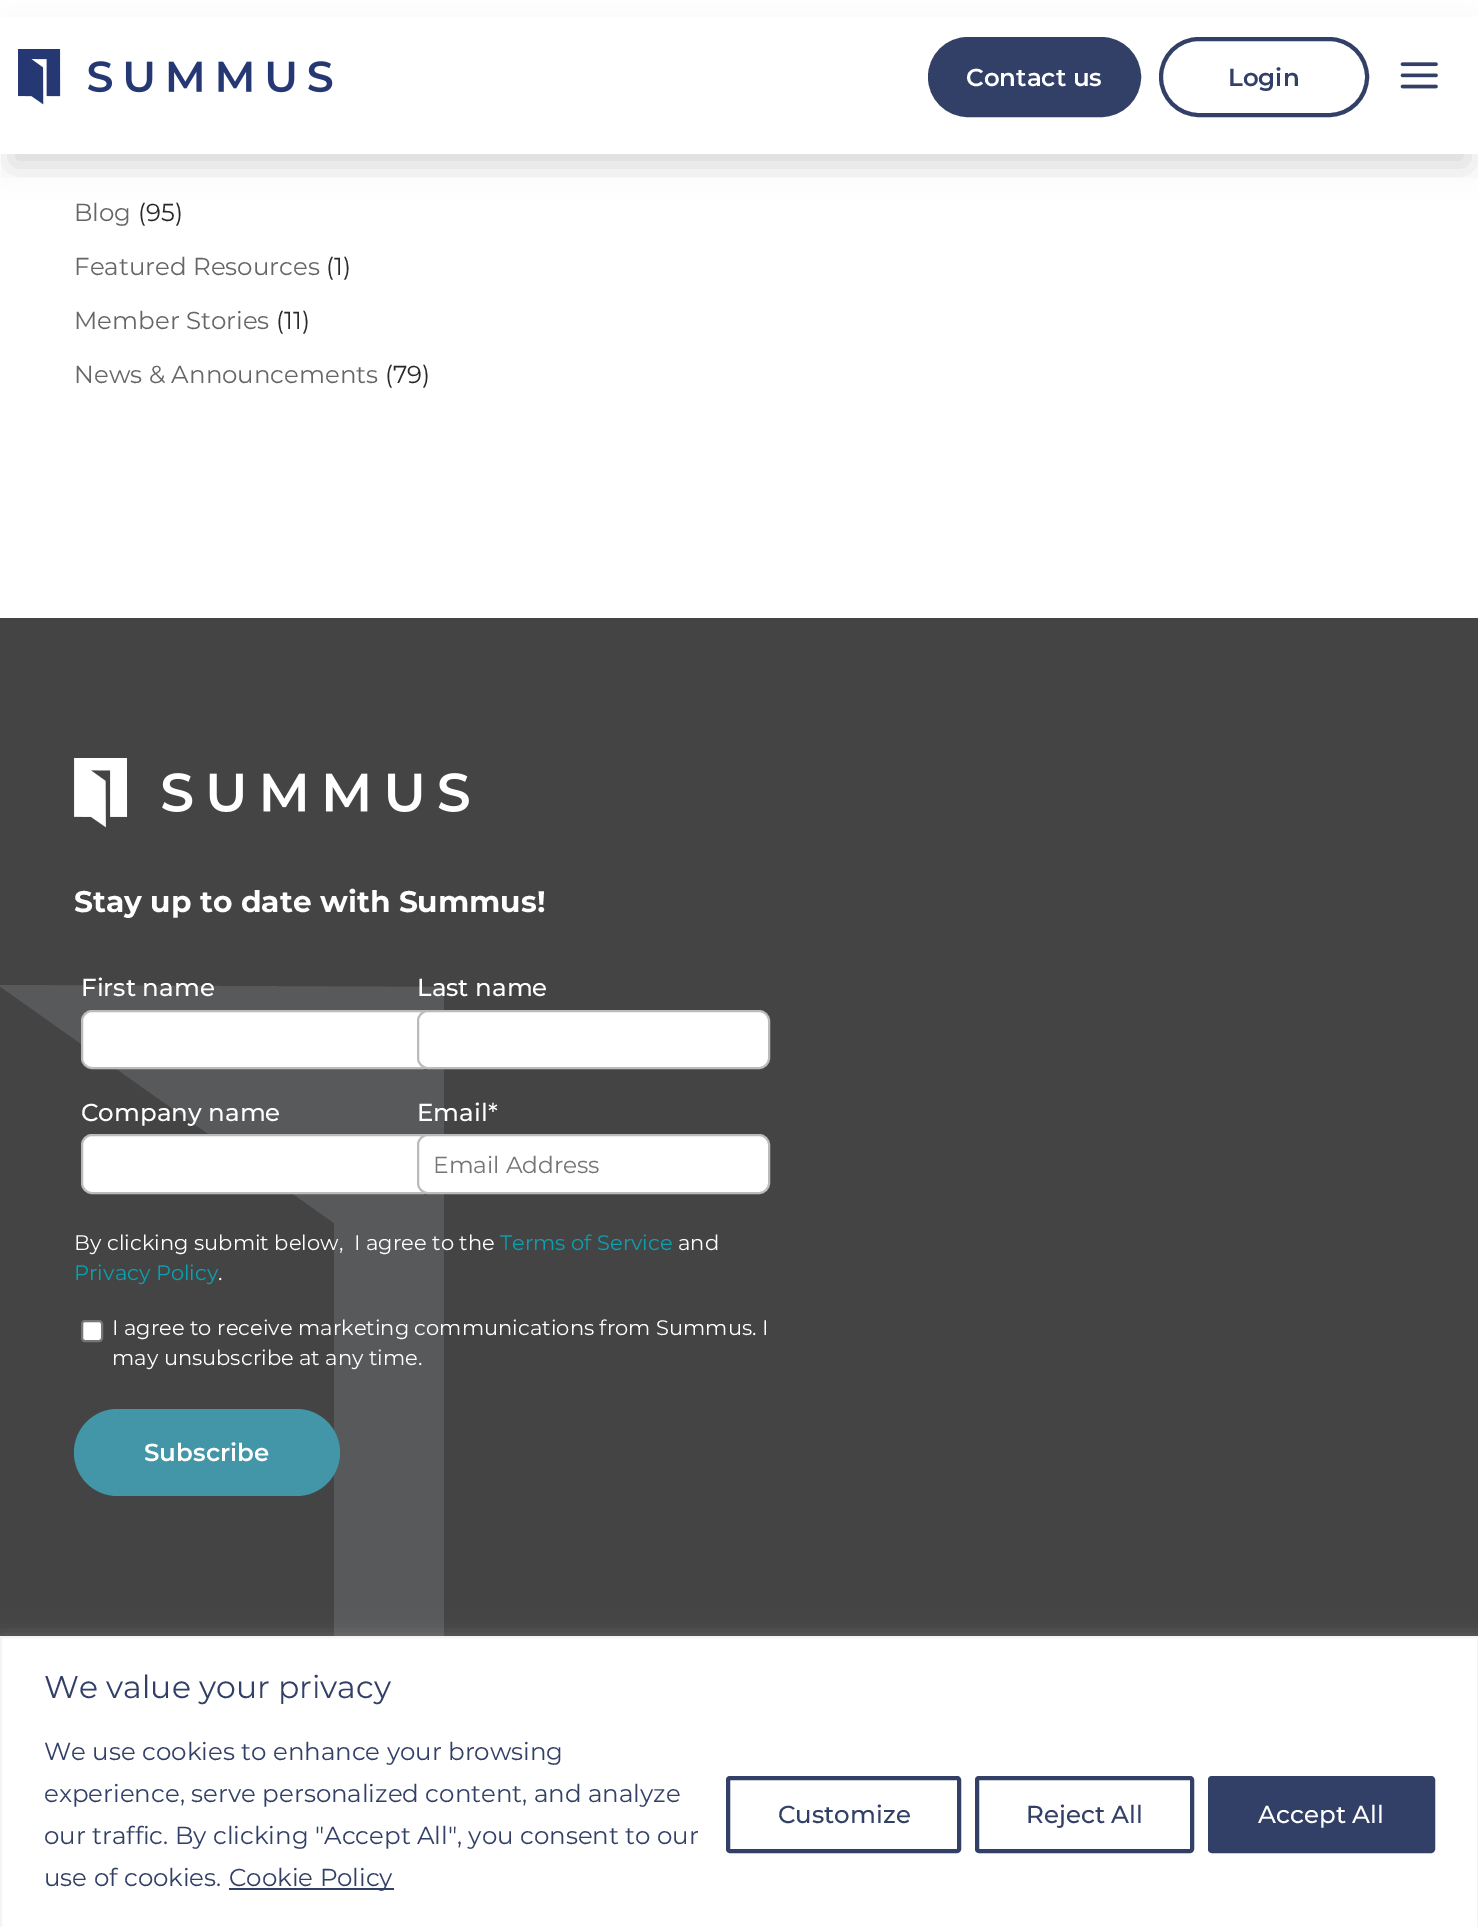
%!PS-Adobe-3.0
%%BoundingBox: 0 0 1478 1927
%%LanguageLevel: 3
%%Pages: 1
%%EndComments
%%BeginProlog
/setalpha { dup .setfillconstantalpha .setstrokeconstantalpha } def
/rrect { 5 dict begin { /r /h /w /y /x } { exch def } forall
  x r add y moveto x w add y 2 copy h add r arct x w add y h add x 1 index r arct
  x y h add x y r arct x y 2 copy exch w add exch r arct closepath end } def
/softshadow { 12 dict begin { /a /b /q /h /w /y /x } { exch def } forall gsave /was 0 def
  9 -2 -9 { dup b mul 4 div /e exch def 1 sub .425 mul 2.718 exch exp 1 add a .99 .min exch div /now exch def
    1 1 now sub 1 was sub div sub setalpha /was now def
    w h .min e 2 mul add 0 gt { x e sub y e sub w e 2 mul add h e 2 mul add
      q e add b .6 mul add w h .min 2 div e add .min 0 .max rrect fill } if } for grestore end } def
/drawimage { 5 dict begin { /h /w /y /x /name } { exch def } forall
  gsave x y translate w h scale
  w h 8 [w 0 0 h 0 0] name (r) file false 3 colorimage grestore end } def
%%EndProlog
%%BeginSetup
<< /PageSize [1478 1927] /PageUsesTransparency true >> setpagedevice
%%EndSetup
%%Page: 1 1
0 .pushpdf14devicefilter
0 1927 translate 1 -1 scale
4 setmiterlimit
1 setgray
0 0 1478 1927 rectfill
0.196 0.247 0.4 setrgbcolor
11 32 1457 133 0 16 0.07 softshadow
1 setgray
0 17 1478 137 rectfill
gsave
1 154 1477 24 rectclip
0 setgray
11 32 1457 133 0 16 0.1 softshadow
grestore
(images/1.raw) 18 49 315 56 drawimage
0.196 0.247 0.4 setrgbcolor
930 39 209 76 38 rrect gsave fill grestore
4 setlinewidth
stroke
1161 39 206 76 38 rrect stroke
(images/2.raw) 1400 62 38 27 drawimage
0.267 setgray
0 618 1478 1018 rectfill
0.345 0.349 0.357 setrgbcolor
newpath 444 987 moveto -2 985 lineto 334 1223 lineto 334 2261 lineto -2 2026 lineto -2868 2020 lineto -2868 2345 lineto 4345 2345 lineto 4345 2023 lineto 444 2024 lineto closepath fill
(images/3.raw) 74 758 395 70 drawimage
1 setgray
82 1011 351 57 10 rrect gsave fill grestore
0.733 setgray
2 setlinewidth
stroke
1 setgray
418 1011 351 57 10 rrect gsave fill grestore
0.733 setgray
stroke
1 setgray
82 1135 351 58 10 rrect gsave fill grestore
0.733 setgray
stroke
1 setgray
418 1135 351 58 10 rrect gsave fill grestore
0.733 setgray
stroke
1 setgray
82 1321 20 20 3 rrect gsave fill grestore
0.463 setgray
stroke
0.263 0.584 0.659 setrgbcolor
74 1409 266 87 43.5 rrect fill
0.675 0.671 0.671 setrgbcolor
0 1635 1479 292 0 9 0.3 softshadow
1 setgray
newpath 1 1637 moveto 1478 1637 lineto 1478 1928 lineto 1 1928 lineto closepath gsave fill grestore
0.957 setgray
stroke
0.196 0.247 0.4 setrgbcolor
229 1888 165 2 rectfill
4 setlinewidth
728 1778 231 73 2 rrect stroke
977 1778 215 73 2 rrect stroke
1210 1778 223 73 2 rrect gsave fill grestore
stroke
/Montserrat-SemiBold [24.5 0 0 -24.5 0 0] selectfont
1 setgray
966 86 moveto (Contact us) show
0.196 0.247 0.4 setrgbcolor
1228 86 moveto (Login) show
/Montserrat-Regular [24.5 0 0 -24.5 0 0] selectfont
0.4 setgray
74 221 moveto (Blog) show
0.165 setgray
138 221 moveto (\(95\)) show
0.4 setgray
74 275 moveto (Featured Resources) show
0.165 setgray
326 275 moveto (\(1\)) show
0.4 setgray
74 329 moveto (Member Stories) show
0.165 setgray
276 329 moveto (\(11\)) show
0.4 setgray
74 383 moveto (News & Announcements) show
0.165 setgray
385 383 moveto (\(79\)) show
/Montserrat-Bold [29.75 0 0 -29.75 0 0] selectfont
1 setgray
74 912 moveto (Stay up to date with Summus!) show
/Montserrat-Medium [24.5 0 0 -24.5 0 0] selectfont
81 996 moveto (First name) show
417 996 moveto (Last name) show
81 1121 moveto (Company name) show
417 1121 moveto (Email*) show
/Montserrat-Regular [23.25 0 0 -23.25 0 0] selectfont
0.459 setgray
433 1173 moveto (Email Address) show
/Montserrat-Regular [21 0 0 -21 0 0] selectfont
1 setgray
74 1250 moveto (By clicking submit below,  I agree to the) show
0.035 0.627 0.686 setrgbcolor
500 1250 moveto (Terms of Service) show
1 setgray
678 1250 moveto (and) show
0.035 0.627 0.686 setrgbcolor
74 1280 moveto (Privacy Policy) show
1 setgray
218 1280 moveto (.) show
112 1335 moveto (I agree to receive marketing communications from Summus. I) show
112 1365 moveto (may unsubscribe at any time.) show
/Montserrat-SemiBold [24.5 0 0 -24.5 0 0] selectfont
144 1461 moveto (Subscribe) show
/Montserrat-Regular [31.5 0 0 -31.5 0 0] selectfont
0.196 0.247 0.4 setrgbcolor
44 1698 moveto (We value your privacy) show
/Montserrat-Regular [24.5 0 0 -24.5 0 0] selectfont
44 1760 moveto (We use cookies to enhance your browsing) show
44 1802 moveto (experience, serve personalized content, and analyze) show
44 1844 moveto (our traffic. By clicking "Accept All", you consent to our) show
44 1886 moveto (use of cookies.) show
229 1886 moveto (Cookie Policy) show
/Montserrat-Medium [24.5 0 0 -24.5 0 0] selectfont
778 1823 moveto (Customize) show
1026 1823 moveto (Reject All) show
1 setgray
1258 1823 moveto (Accept All) show
.poppdf14devicefilter showpage
%%EOF
